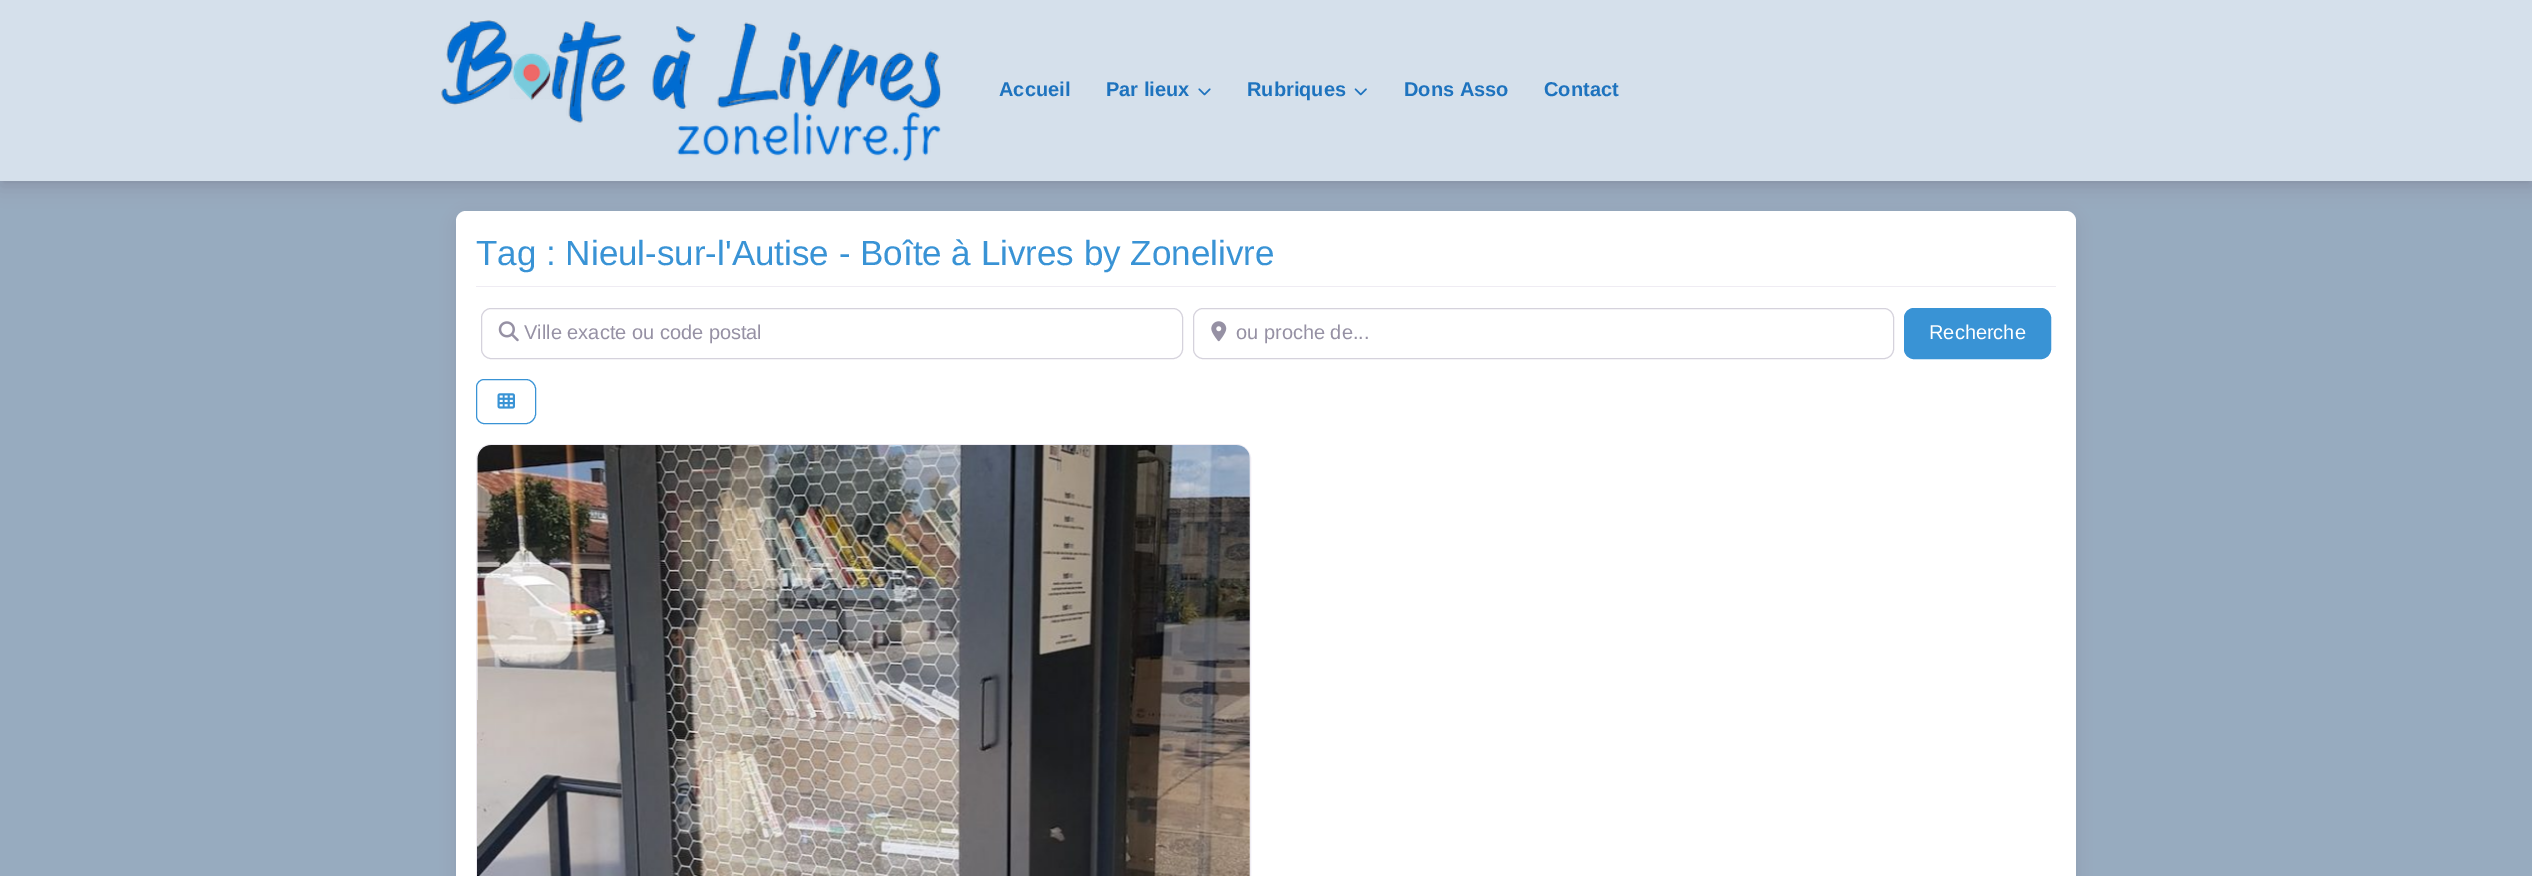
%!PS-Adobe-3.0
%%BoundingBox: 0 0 2532 876
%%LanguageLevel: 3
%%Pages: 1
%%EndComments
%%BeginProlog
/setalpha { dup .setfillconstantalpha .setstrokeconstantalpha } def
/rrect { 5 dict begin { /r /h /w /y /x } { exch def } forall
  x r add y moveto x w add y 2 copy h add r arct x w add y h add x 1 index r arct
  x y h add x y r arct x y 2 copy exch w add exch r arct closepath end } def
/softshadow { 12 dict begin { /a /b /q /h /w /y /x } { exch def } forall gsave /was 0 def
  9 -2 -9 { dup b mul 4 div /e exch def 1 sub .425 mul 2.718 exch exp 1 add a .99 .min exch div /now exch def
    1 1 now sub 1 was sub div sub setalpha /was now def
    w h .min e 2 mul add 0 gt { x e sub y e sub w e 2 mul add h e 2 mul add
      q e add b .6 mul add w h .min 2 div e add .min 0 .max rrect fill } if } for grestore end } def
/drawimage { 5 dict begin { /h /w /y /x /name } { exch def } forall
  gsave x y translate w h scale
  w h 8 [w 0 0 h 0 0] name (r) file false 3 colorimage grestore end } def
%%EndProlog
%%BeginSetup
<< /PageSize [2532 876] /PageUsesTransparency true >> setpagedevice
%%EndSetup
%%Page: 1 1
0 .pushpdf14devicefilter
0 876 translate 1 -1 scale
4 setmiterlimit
0.592 0.671 0.749 setrgbcolor
0 0 2532 876 rectfill
0.122 0.106 0.176 setrgbcolor
0 5 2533 181 0 10 0.12 softshadow
5 8 2523 171 0 5 0.12 softshadow
0.835 0.878 0.922 setrgbcolor
0 0 2532 181 rectfill
(images/1.raw) 441 20 500 142 drawimage
(images/2.raw) 1198 88 13 8 drawimage
(images/3.raw) 1354 88 13 8 drawimage
0.122 0.106 0.176 setrgbcolor
456 216 1620 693 10 7.5 0.08 softshadow
1 setgray
456 211 1620 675 10 rrect fill
0.937 0.925 0.953 setrgbcolor
476 286 1580 1 rectfill
0.835 0.824 0.863 setrgbcolor
481.5 308.5 701 50 9.5 rrect stroke
(images/4.raw) 498 321 21 21 drawimage
1193.5 308.5 700 50 9.5 rrect stroke
(images/5.raw) 1211 321 16 21 drawimage
0.224 0.576 0.835 setrgbcolor
1904.5 308.5 146 50 9.5 rrect gsave fill grestore
stroke
newpath 484 379.5 moveto 526 379.5 lineto 531 379.5 535.5 384 535.5 389 curveto 535.5 414 lineto 535.5 419 531 423.5 526 423.5 curveto 484 423.5 lineto 480 423.5 476.5 420 476.5 416 curveto 476.5 387 lineto 476.5 383 480 379.5 484 379.5 curveto closepath stroke
(images/6.raw) 497 393 18 16 drawimage
0.937 0.925 0.953 setrgbcolor
476.5 444.5 774 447 14.5 rrect stroke
(images/7.raw) 477 445 773 431 drawimage
/LiberationSans-Bold [20 0 0 -20 0 0] selectfont
0.118 0.451 0.745 setrgbcolor
999 96 moveto (Accueil) show
1106 96 moveto (Par lieux) show
1247 96 moveto (Rubriques) show
1404 96 moveto (Dons Asso) show
1544 96 moveto (Contact) show
/LiberationSans-Regular [35 0 0 -35 0 0] selectfont
0.224 0.576 0.835 setrgbcolor
476 265 moveto (Tag : Nieul-sur-l'Autise - Boîte à Livres by Zonelivre) show
/LiberationSans-Regular [20 0 0 -20 0 0] selectfont
0.588 0.569 0.643 setrgbcolor
524 339 moveto (Ville exacte ou code postal) show
1236 339 moveto (ou proche de...) show
1 setgray
1929 339 moveto (Recherche) show
.poppdf14devicefilter showpage
%%EOF
